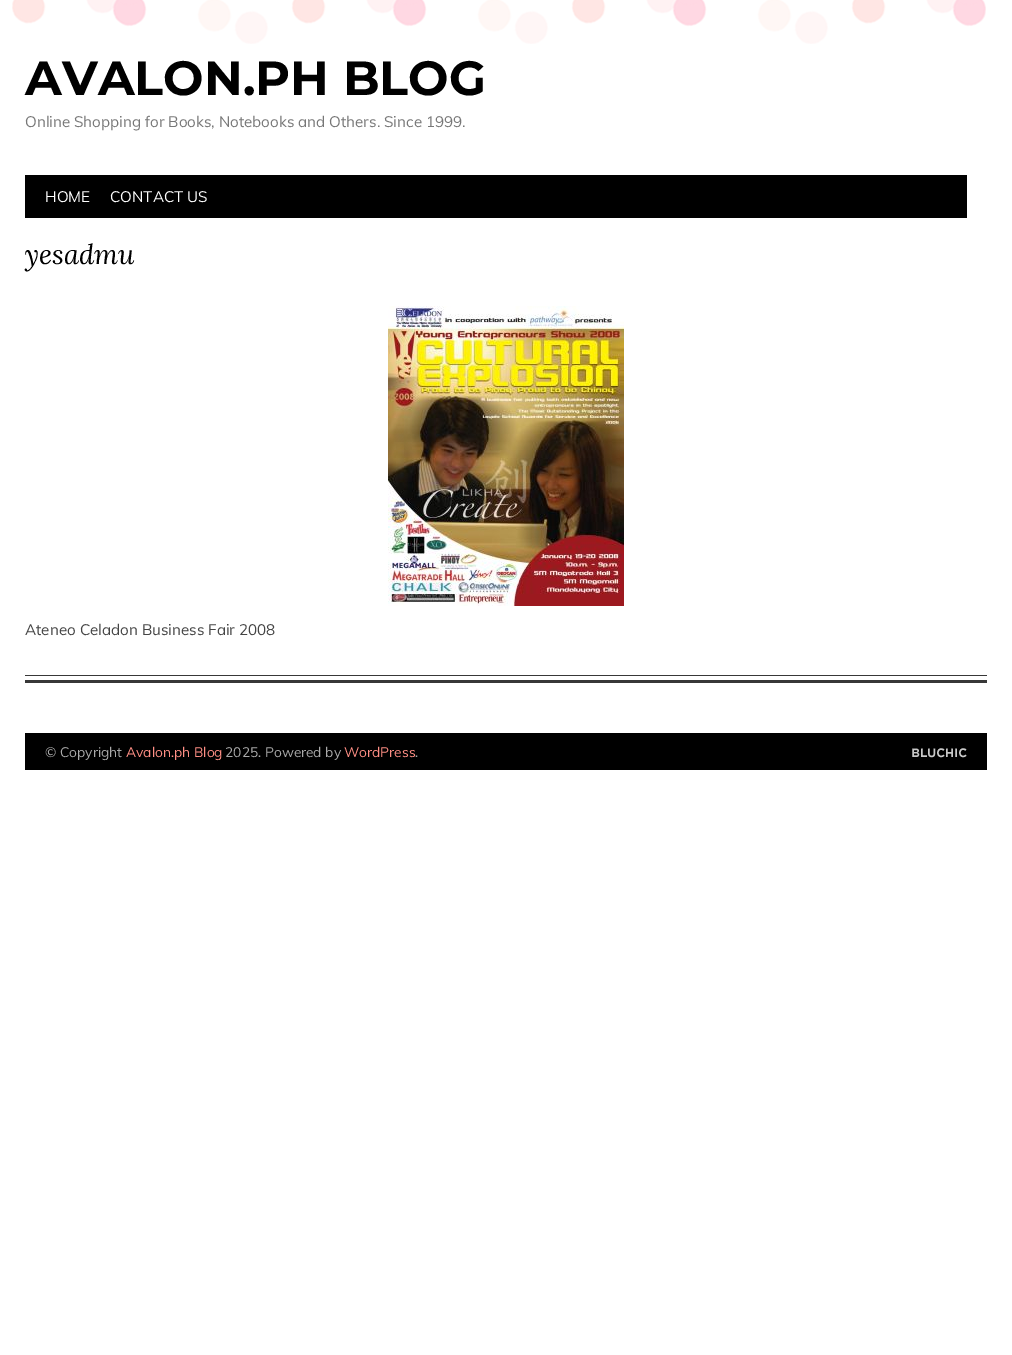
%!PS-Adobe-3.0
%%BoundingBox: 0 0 1012 1355
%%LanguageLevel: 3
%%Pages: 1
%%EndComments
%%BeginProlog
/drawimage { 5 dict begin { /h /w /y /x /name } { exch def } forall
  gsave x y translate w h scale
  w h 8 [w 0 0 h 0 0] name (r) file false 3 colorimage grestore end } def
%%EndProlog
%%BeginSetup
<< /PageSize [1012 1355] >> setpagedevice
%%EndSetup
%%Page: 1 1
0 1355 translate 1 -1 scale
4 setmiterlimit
1 setgray
0 0 1012 1355 rectfill
(images/1.raw) 12 0 974 44 drawimage
0 setgray
25 175 942 43 rectfill
(images/2.raw) 25 675 962 8 drawimage
(images/3.raw) 388 306 236 300 drawimage
25 733 962 37 rectfill
(images/4.raw) 912 748 55 10 drawimage
/Montserrat-Bold [48 0 0 -48 0 0] selectfont
25 95 moveto (AVALON.PH BLOG) show
/Muli-Regular [15.2 0 0 -15.2 0 0] selectfont
0.467 setgray
25 127 moveto (Online Shopping for Books, Notebooks and Others. Since 1999.) show
1 setgray
45 202 moveto (HOME) show
110 202 moveto (CONTACT US) show
/Lora-Italic [27.5 0 0 -27.5 0 0] selectfont
0 setgray
25 264 moveto (yesadmu) show
/Muli-Regular [15.2 0 0 -15.2 0 0] selectfont
0.267 setgray
25 635 moveto (Ateneo Celadon Business Fair 2008) show
/Muli-Regular [13.75 0 0 -13.75 0 0] selectfont
0.667 setgray
45 757 moveto (© Copyright) show
1 0.561 0.522 setrgbcolor
126 757 moveto (Avalon.ph Blog) show
0.667 setgray
225 757 moveto (2025. Powered by) show
1 0.561 0.522 setrgbcolor
344 757 moveto (WordPress) show
0.667 setgray
415 757 moveto (.) show
showpage
%%EOF
